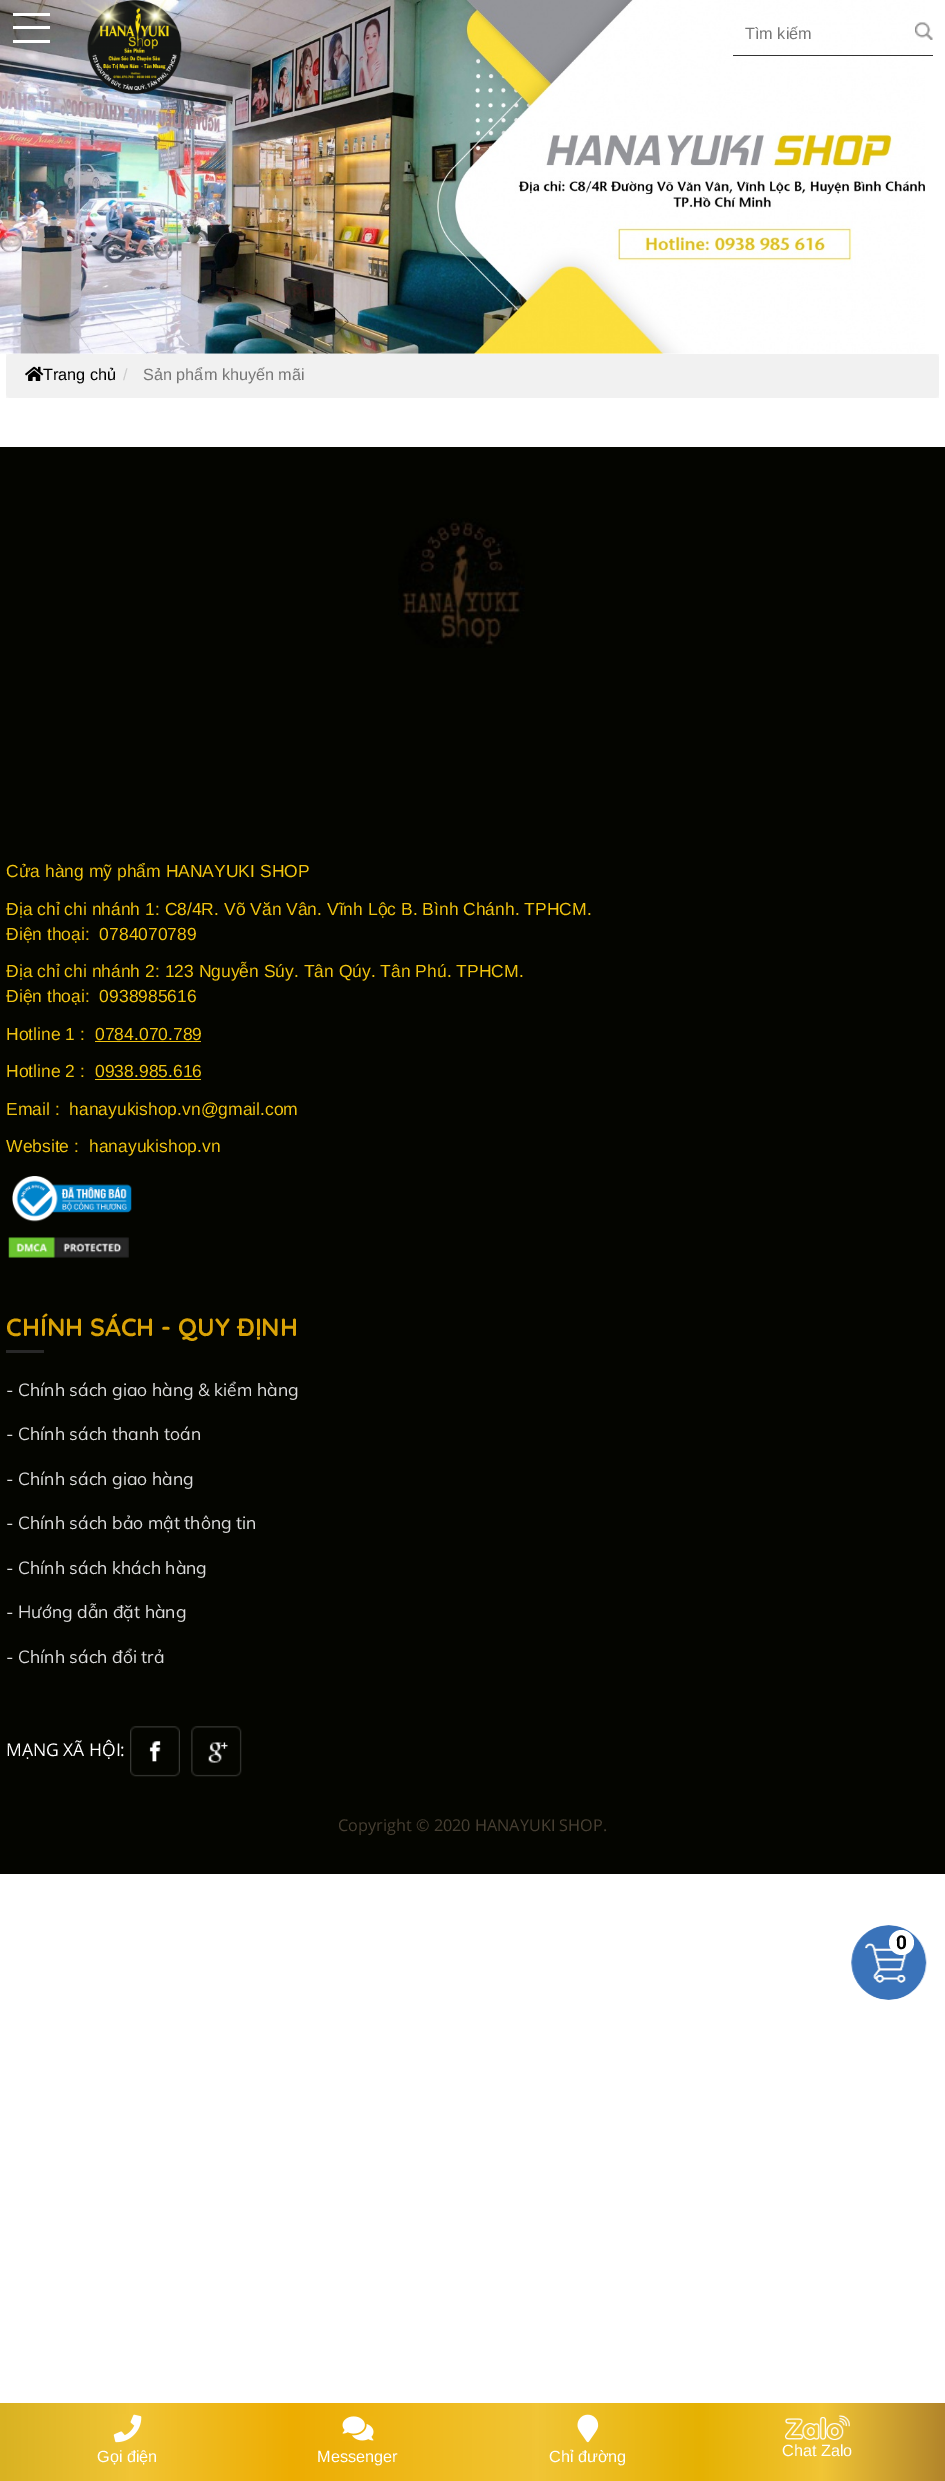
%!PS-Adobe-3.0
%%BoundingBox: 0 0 945 2481
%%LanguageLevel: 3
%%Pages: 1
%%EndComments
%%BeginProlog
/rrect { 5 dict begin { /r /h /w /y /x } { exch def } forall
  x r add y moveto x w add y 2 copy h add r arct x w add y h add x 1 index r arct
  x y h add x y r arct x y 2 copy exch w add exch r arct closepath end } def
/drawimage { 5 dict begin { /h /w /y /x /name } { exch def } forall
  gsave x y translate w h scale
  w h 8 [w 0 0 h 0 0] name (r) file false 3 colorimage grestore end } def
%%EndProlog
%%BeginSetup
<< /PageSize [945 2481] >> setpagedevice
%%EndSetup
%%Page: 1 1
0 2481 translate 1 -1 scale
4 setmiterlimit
1 setgray
0 0 945 2481 rectfill
(images/1.raw) 0 0 925 354 drawimage
13 13 37 3 rectfill
13 26 37 3 rectfill
13 40 37 3 rectfill
(images/3.raw) 87 0 95 94 drawimage
(images/2.raw) 81 0 55 45 drawimage
(images/4.raw) 128 0 54 45 drawimage
0.196 setgray
733 55 200 1 rectfill
(images/5.raw) 915 22 18 18 drawimage
0.961 setgray
6 354 933 44 rectfill
0.945 setgray
6 354 933 44 5 rrect fill
(images/6.raw) 25 366 19 15 drawimage
0.016 0.02 0 setrgbcolor
0 447 945 1427 rectfill
(images/7.raw) 398 518 127 130 drawimage
0.945 0.769 0.059 setrgbcolor
95 1041 106 1 rectfill
95 1079 106 1 rectfill
(images/8.raw) 12 1176 120 46 drawimage
(images/9.raw) 8 1237 121 21 drawimage
0.157 setgray
6 1350 38 3 rectfill
(images/10.raw) 130 1726 50 51 drawimage
(images/11.raw) 191 1726 51 51 drawimage
(images/12.raw) 851 1925 76 75 drawimage
1 setgray
newpath 901.5 1942.5 12.5 0 360 arc closepath fill
gsave newpath 0 2403 moveto 945 2403 lineto 945 2481 lineto 0 2481 lineto closepath clip newpath
<< /ShadingType 2 /ColorSpace /DeviceRGB /Coords [0 2442 945 2442] /Extend [true true] /Function << /FunctionType 3 /Domain [0 1] /Functions [<< /FunctionType 2 /Domain [0 1] /C0 [0.851 0.698 0.133] /C1 [0.945 0.773 0.208] /N 1 >> << /FunctionType 2 /Domain [0 1] /C0 [0.945 0.773 0.208] /C1 [0.929 0.678 0.004] /N 1 >> << /FunctionType 2 /Domain [0 1] /C0 [0.929 0.678 0.004] /C1 [0.945 0.773 0.208] /N 1 >> << /FunctionType 2 /Domain [0 1] /C0 [0.945 0.773 0.208] /C1 [0.898 0.694 0.008] /N 1 >> << /FunctionType 2 /Domain [0 1] /C0 [0.898 0.694 0.008] /C1 [0.945 0.773 0.208] /N 1 >> << /FunctionType 2 /Domain [0 1] /C0 [0.945 0.773 0.208] /C1 [0.698 0.522 0.169] /N 1 >>] /Bounds [0.14 0.31 0.57 0.74 0.87] /Encode [0 1 0 1 0 1 0 1 0 1 0 1] >> >> shfill grestore
(images/13.raw) 113 2414 29 29 drawimage
(images/14.raw) 342 2416 32 25 drawimage
(images/15.raw) 577 2414 22 29 drawimage
(images/16.raw) 785 2415 65 25 drawimage
/LiberationSans-Regular [16.25 0 0 -16.25 0 0] selectfont
0.467 setgray
745 39 moveto (Tìm kiếm) show
0 setgray
43 380 moveto (Trang chủ) show
0.8 setgray
123 380 moveto (/) show
0.467 setgray
143 380 moveto (Sản phẩm khuyến mãi) show
/LiberationSans-Regular [17.5 0 0 -17.5 0 0] selectfont
0.945 0.769 0.059 setrgbcolor
6 877 moveto (Cửa hàng mỹ phẩm HANAYUKI SHOP) show
6 915 moveto (Địa chỉ chi nhánh 1: C8/4R. Võ Văn Vân. Vĩnh Lộc B. Bình Chánh. TPHCM.) show
6 940 moveto (Điện thoại:  0784070789) show
6 977 moveto (Địa chỉ chi nhánh 2: 123 Nguyễn Súy. Tân Qúy. Tân Phú. TPHCM.) show
6 1002 moveto (Điện thoại:  0938985616) show
6 1040 moveto (Hotline 1 :) show
95 1040 moveto (0784.070.789) show
6 1077 moveto (Hotline 2 :) show
95 1077 moveto (0938.985.616) show
6 1115 moveto (Email :  hanayukishop.vn@gmail.com) show
6 1152 moveto (Website :) show
89 1152 moveto (hanayukishop.vn) show
/Quicksand-Bold [25 0 0 -25 0 0] selectfont
0.851 0.635 0.024 setrgbcolor
6 1336 moveto (CHÍNH SÁCH - QUY ĐỊNH) show
/Muli-Regular [17.5 0 0 -17.5 0 0] selectfont
0.859 setgray
6 1396 moveto (- Chính sách giao hàng & kiểm hàng) show
6 1440 moveto (- Chính sách thanh toán) show
6 1485 moveto (- Chính sách giao hàng) show
6 1529 moveto (- Chính sách bảo mật thông tin) show
6 1574 moveto (- Chính sách khách hàng) show
6 1618 moveto (- Hướng dẫn đặt hàng) show
6 1663 moveto (- Chính sách đổi trả) show
/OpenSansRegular-Regular [17.5 0 0 -17.5 0 0] selectfont
1 setgray
6 1756 moveto (MẠNG XÃ HỘI:) show
/OpenSansRegular-Regular [16.25 0 0 -16.25 0 0] selectfont
0.275 0.243 0.196 setrgbcolor
338 1831 moveto (Copyright © 2020 HANAYUKI SHOP.) show
/Roboto-Bold [19 0 0 -19 0 0] selectfont
0 setgray
896 1949 moveto (0) show
/LiberationSans-Regular [16.25 0 0 -16.25 0 0] selectfont
1 setgray
97 2462 moveto (Gọi điện) show
317 2462 moveto (Messenger) show
549 2462 moveto (Chỉ đường) show
782 2456 moveto (Chat Zalo) show
showpage
%%EOF
